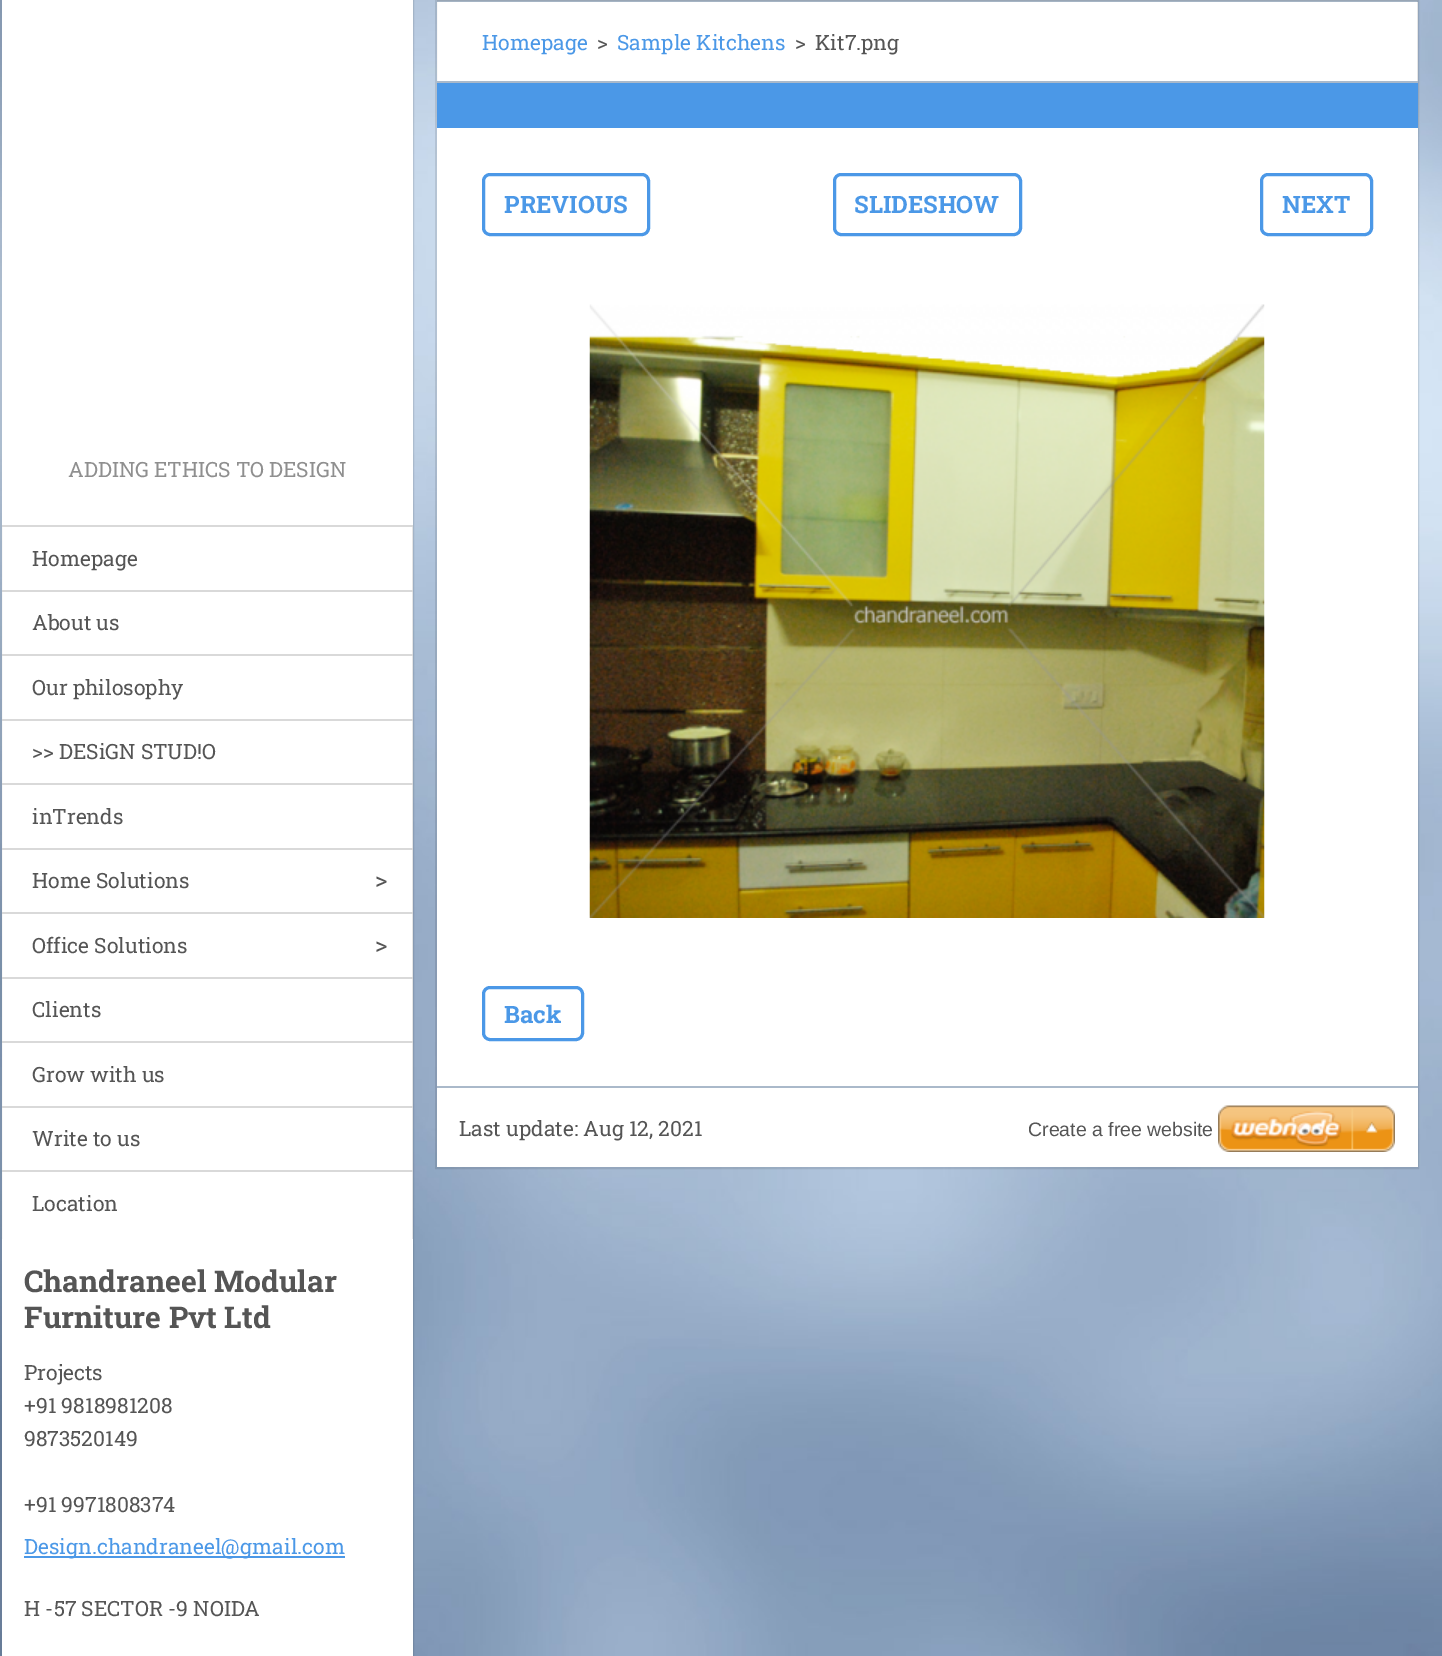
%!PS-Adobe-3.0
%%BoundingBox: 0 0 1442 1656
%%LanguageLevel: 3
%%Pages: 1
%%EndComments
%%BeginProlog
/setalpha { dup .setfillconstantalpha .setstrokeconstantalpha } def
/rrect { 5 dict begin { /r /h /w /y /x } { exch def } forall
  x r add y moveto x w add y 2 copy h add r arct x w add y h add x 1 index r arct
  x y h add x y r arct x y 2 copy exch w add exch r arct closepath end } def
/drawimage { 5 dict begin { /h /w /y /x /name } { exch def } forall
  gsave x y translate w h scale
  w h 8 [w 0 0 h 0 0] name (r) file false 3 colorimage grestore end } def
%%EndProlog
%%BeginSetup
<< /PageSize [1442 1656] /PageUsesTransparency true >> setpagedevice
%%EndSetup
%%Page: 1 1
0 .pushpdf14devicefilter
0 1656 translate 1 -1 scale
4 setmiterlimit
1 setgray
0 0 1442 1656 rectfill
(images/1.raw) 0 0 1442 1656 drawimage
2 527 411 712 rectfill
0.1 setalpha
0 setgray
2 setlinewidth
1 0 412 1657 rectstroke
1 setalpha
1 setgray
2 0 411 525 rectfill
0.851 setgray
2 525 411 2 rectfill
2 590 411 2 rectfill
2 654 411 2 rectfill
2 719 411 2 rectfill
2 783 411 2 rectfill
2 848 411 2 rectfill
2 912 411 2 rectfill
2 977 411 2 rectfill
2 1041 411 2 rectfill
2 1106 411 2 rectfill
2 1170 411 2 rectfill
1 setgray
2 1239 411 417 rectfill
0.294 0.596 0.906 setrgbcolor
24 1556 321 2 rectfill
1 setgray
437 2 981 79 rectfill
0.667 0.725 0.792 setrgbcolor
437 0 981 2 rectfill
0.1 setalpha
0 setgray
436 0 982 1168 rectstroke
1 setalpha
0.667 0.725 0.792 setrgbcolor
437 81 981 2 rectfill
0.294 0.596 0.906 setrgbcolor
437 83 981 45 rectfill
1 setgray
437 128 981 958 rectfill
0.294 0.596 0.906 setrgbcolor
3 setlinewidth
483.5 174.5 165 60 6.5 rrect stroke
834.5 174.5 186 60 6.5 rrect stroke
1261.5 174.5 110 60 6.5 rrect stroke
(images/2.raw) 589 304 676 614 drawimage
483.5 987.5 99 52 6.5 rrect stroke
1 setgray
437 1088 981 79 rectfill
0.667 0.725 0.792 setrgbcolor
437 1086 981 2 rectfill
(images/3.raw) 1218 1105 177 47 drawimage
/RobotoSlab-Regular [21 0 0 -21 0 0] selectfont
0.561 setgray
68 477 moveto (ADDING ETHICS TO DESIGN) show
0.333 setgray
32 566 moveto (Homepage) show
32 630 moveto (About us) show
32 695 moveto (Our philosophy) show
32 759 moveto (>> DESiGN STUD!O) show
32 824 moveto (inTrends) show
32 888 moveto (Home Solutions) show
/RobotoSlab-Regular [24 0 0 -24 0 0] selectfont
375 888 moveto (>) show
/RobotoSlab-Regular [21 0 0 -21 0 0] selectfont
32 953 moveto (Office Solutions) show
/RobotoSlab-Regular [24 0 0 -24 0 0] selectfont
375 953 moveto (>) show
/RobotoSlab-Regular [21 0 0 -21 0 0] selectfont
32 1017 moveto (Clients) show
32 1082 moveto (Grow with us) show
32 1146 moveto (Write to us) show
32 1211 moveto (Location) show
/RobotoSlab-Bold [30 0 0 -30 0 0] selectfont
24 1292 moveto (Chandraneel Modular) show
24 1328 moveto (Furniture Pvt Ltd) show
/RobotoSlab-Regular [21 0 0 -21 0 0] selectfont
24 1380 moveto (Projects) show
24 1413 moveto (+91 9818981208) show
24 1446 moveto (9873520149) show
24 1512 moveto (+91 9971808374) show
0.294 0.596 0.906 setrgbcolor
24 1554 moveto (Design.chandraneel@gmail.com) show
0.333 setgray
24 1616 moveto (H -57 SECTOR -9 NOIDA) show
0.294 0.596 0.906 setrgbcolor
482 50 moveto (Homepage) show
0.333 setgray
597 50 moveto (>) show
0.294 0.596 0.906 setrgbcolor
617 50 moveto (Sample Kitchens) show
0.333 setgray
795 50 moveto (>) show
815 50 moveto (Kit7.png) show
/RobotoSlab-Bold [24 0 0 -24 0 0] selectfont
0.294 0.596 0.906 setrgbcolor
504 213 moveto (PREVIOUS) show
854 213 moveto (SLIDESHOW) show
1282 213 moveto (NEXT) show
504 1023 moveto (Back) show
/RobotoSlab-Regular [21 0 0 -21 0 0] selectfont
0.333 setgray
459 1136 moveto (Last update: Aug 12, 2021) show
/LiberationSans-Regular [19.5 0 0 -19.5 0 0] selectfont
1028 1136 moveto (Create a free website) show
.poppdf14devicefilter showpage
%%EOF
